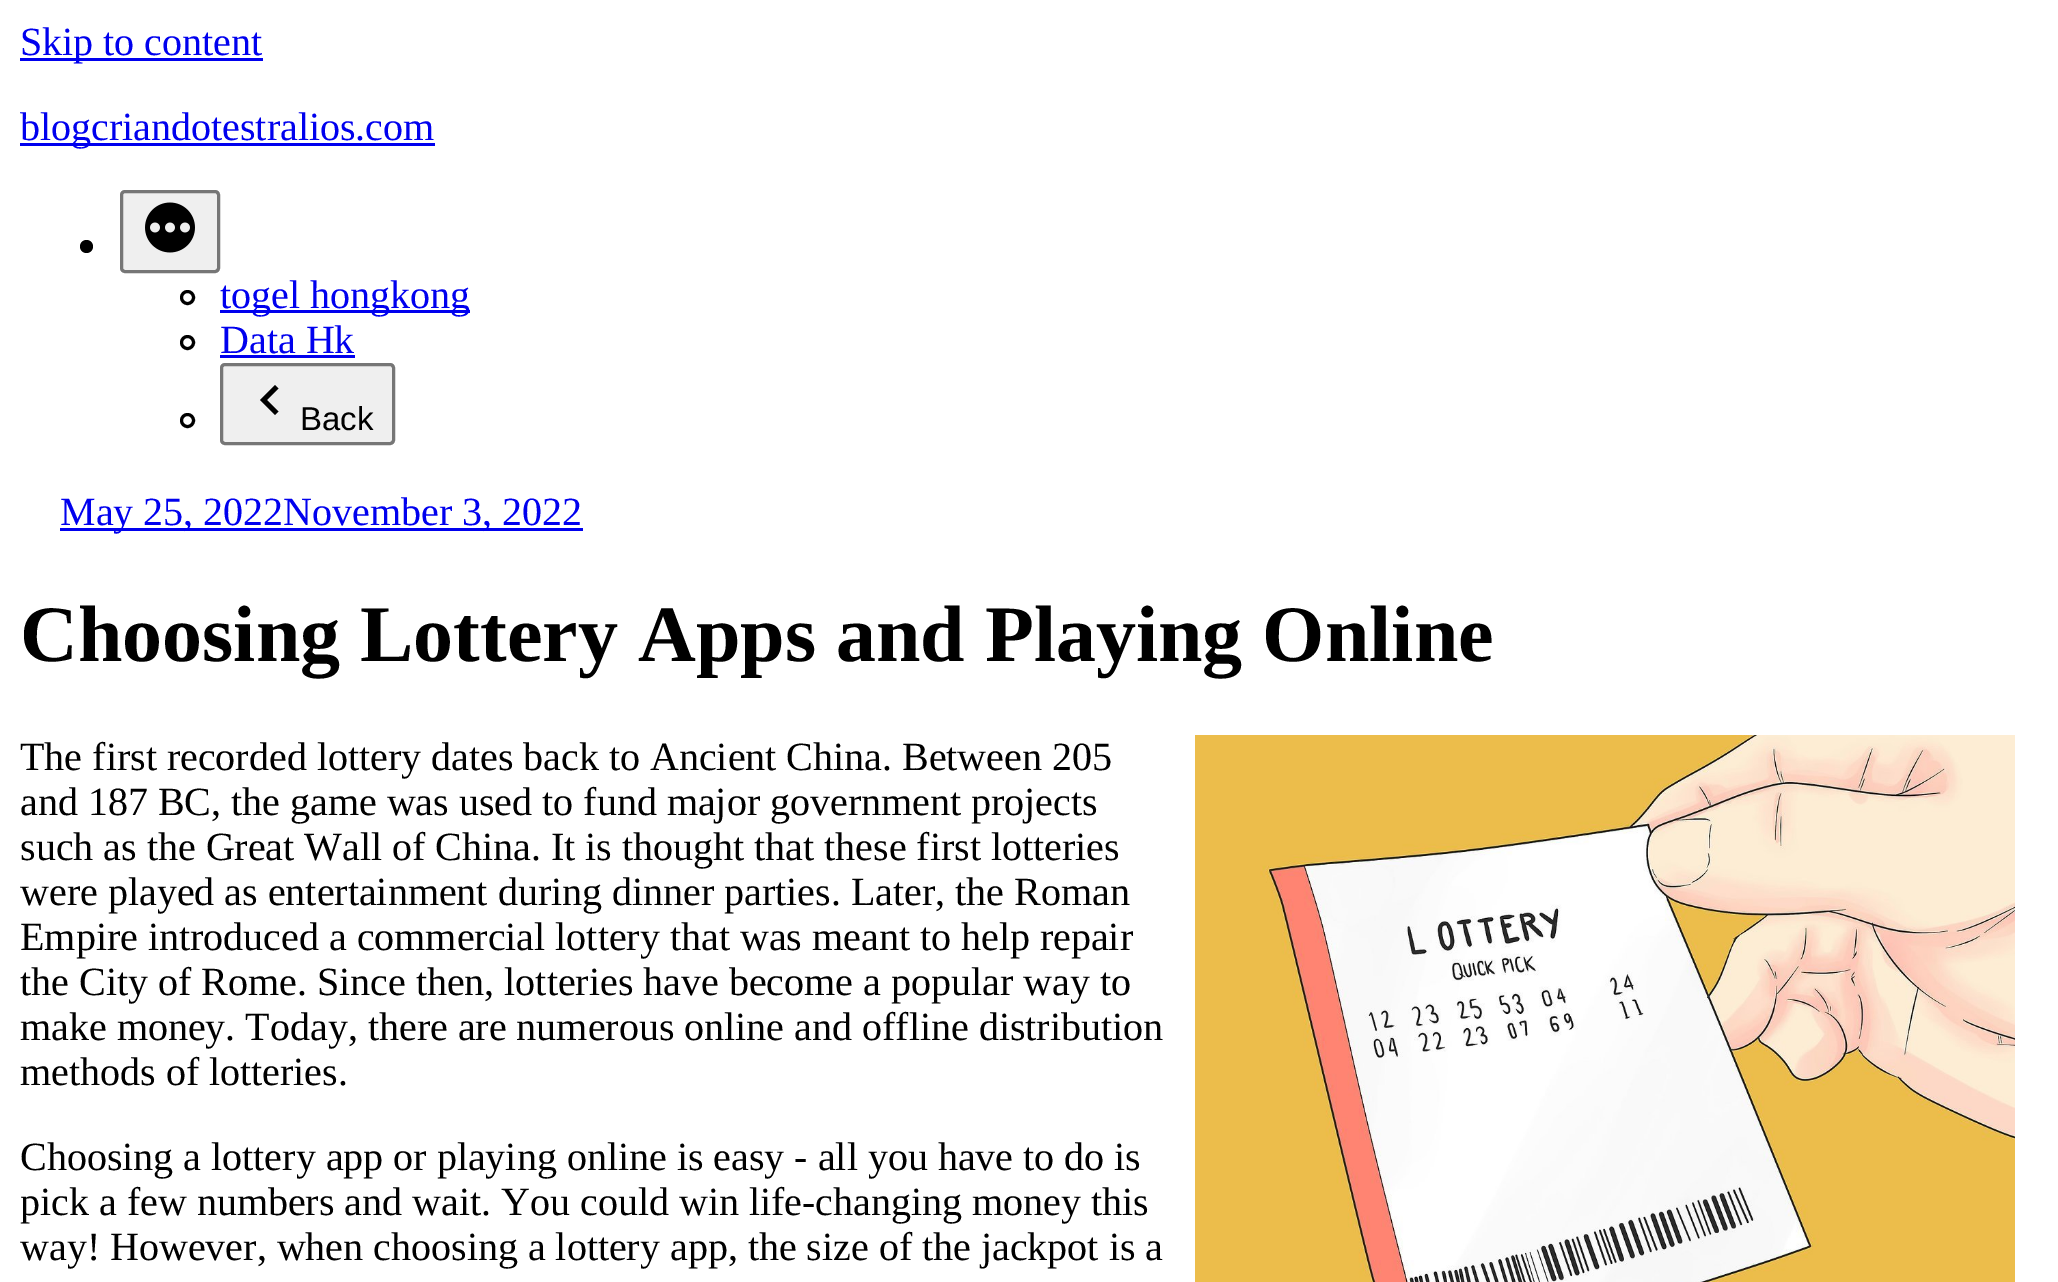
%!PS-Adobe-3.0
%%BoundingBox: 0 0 2058 1282
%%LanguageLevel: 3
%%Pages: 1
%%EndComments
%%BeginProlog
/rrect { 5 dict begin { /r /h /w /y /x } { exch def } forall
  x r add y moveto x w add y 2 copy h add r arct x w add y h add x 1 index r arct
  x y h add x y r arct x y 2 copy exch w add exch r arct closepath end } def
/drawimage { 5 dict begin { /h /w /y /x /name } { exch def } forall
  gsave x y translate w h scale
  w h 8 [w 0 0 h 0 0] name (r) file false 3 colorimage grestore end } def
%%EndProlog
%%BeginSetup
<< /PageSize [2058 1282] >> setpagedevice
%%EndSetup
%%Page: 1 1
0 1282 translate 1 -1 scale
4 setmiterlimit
1 setgray
0 0 2058 1282 rectfill
0 0 0.933 setrgbcolor
20 58 243 3 rectfill
20 143 415 3 rectfill
0 setgray
newpath 86.5 246.5 6.5 0 360 arc closepath fill
0.937 setgray
121.5 191.5 97 80 3.5 rrect gsave fill grestore
0.463 setgray
3 setlinewidth
stroke
(images/1.raw) 145 202 50 51 drawimage
0 setgray
newpath 187.5 297.5 6 0 360 arc closepath stroke
0 0 0.933 setrgbcolor
220 310 250 3 rectfill
0 setgray
newpath 187.5 342.5 6 0 360 arc closepath stroke
0 0 0.933 setrgbcolor
220 355 135 3 rectfill
0 setgray
newpath 187.5 420.5 6 0 360 arc closepath stroke
0.937 setgray
221.5 364.5 172 79 3.5 rrect gsave fill grestore
0.463 setgray
stroke
0 setgray
newpath 278.5 388.5 moveto 275 385 lineto 260 400 lineto 275 415 lineto 278.5 411.5 lineto 267 400 lineto closepath fill
0 0 0.933 setrgbcolor
60 528 523 3 rectfill
(images/2.raw) 1195 735 820 547 drawimage
/LiberationSerif-Regular [40 0 0 -40 0 0] selectfont
20 55 moveto (Skip to content) show
20 140 moveto (blogcriandotestralios.com) show
220 308 moveto (togel hongkong) show
220 353 moveto (Data Hk) show
/LiberationSans-Regular [33 0 0 -33 0 0] selectfont
0 setgray
300 430 moveto (Back) show
/LiberationSerif-Regular [40 0 0 -40 0 0] selectfont
0 0 0.933 setrgbcolor
60 525 moveto (May 25, 2022November 3, 2022) show
/LiberationSerif-Bold [80 0 0 -80 0 0] selectfont
0 setgray
20 661 moveto (Choosing Lottery Apps and Playing Online) show
/LiberationSerif-Regular [40 0 0 -40 0 0] selectfont
20 770 moveto (The first recorded lottery dates back to Ancient China. Between 205) show
20 815 moveto (and 187 BC, the game was used to fund major government projects) show
20 860 moveto (such as the Great Wall of China. It is thought that these first lotteries) show
20 905 moveto (were played as entertainment during dinner parties. Later, the Roman) show
20 950 moveto (Empire introduced a commercial lottery that was meant to help repair) show
20 995 moveto (the City of Rome. Since then, lotteries have become a popular way to) show
20 1040 moveto (make money. Today, there are numerous online and offline distribution) show
20 1085 moveto (methods of lotteries.) show
20 1170 moveto (Choosing a lottery app or playing online is easy - all you have to do is) show
20 1215 moveto (pick a few numbers and wait. You could win life-changing money this) show
20 1260 moveto (way! However, when choosing a lottery app, the size of the jackpot is a) show
showpage
%%EOF
